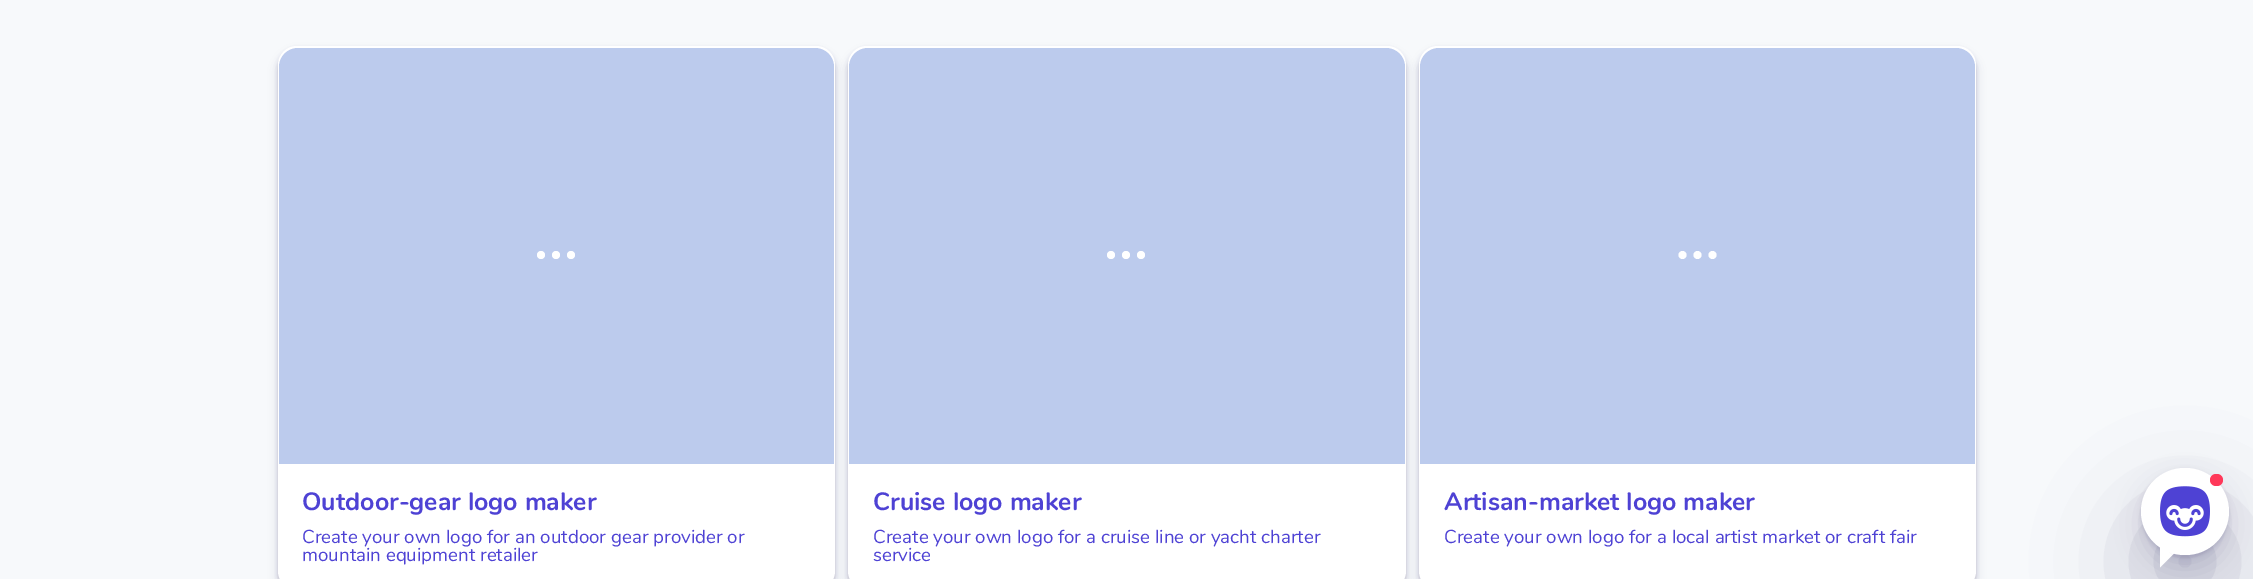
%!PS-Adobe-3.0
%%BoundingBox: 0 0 2253 579
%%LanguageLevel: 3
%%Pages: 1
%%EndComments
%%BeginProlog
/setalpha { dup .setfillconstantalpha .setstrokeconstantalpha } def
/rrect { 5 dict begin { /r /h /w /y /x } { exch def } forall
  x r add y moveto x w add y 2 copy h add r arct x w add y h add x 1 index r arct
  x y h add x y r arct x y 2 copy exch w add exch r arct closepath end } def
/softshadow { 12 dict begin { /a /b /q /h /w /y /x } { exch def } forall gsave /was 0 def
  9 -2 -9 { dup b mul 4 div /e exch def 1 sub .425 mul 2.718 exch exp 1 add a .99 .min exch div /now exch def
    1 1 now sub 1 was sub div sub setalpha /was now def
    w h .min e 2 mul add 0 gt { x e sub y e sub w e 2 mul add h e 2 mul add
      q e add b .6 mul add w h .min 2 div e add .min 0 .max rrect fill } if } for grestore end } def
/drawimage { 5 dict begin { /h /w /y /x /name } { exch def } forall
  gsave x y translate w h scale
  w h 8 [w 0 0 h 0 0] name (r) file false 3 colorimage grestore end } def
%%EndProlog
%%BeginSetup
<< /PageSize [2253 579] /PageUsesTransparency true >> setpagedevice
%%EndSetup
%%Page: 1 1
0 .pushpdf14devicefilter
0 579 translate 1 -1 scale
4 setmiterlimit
0.969 0.976 0.984 setrgbcolor
0 0 2253 579 rectfill
0.157 0.141 0.349 setrgbcolor
278 53 557 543 19 5 0.15 softshadow
278 49 557 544 19 2 0.2 softshadow
1 setgray
278 46 557 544 19 rrect fill
0.737 0.796 0.929 setrgbcolor
newpath 298 48 moveto 815 48 lineto 825.5 48 834 56.5 834 67 curveto 834 464 lineto 279 464 lineto 279 67 lineto 279 56.5 287.5 48 298 48 curveto closepath fill
1 setgray
newpath 541 255 4 0 360 arc closepath fill
newpath 556 255 4 0 360 arc closepath fill
newpath 571 255 4 0 360 arc closepath fill
0.157 0.141 0.349 setrgbcolor
848 53 558 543 19 5 0.15 softshadow
848 49 558 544 19 2 0.2 softshadow
1 setgray
848 46 558 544 19 rrect fill
0.737 0.796 0.929 setrgbcolor
newpath 868 48 moveto 1386 48 lineto 1396.5 48 1405 56.5 1405 67 curveto 1405 464 lineto 849 464 lineto 849 67 lineto 849 56.5 857.5 48 868 48 curveto closepath fill
1 setgray
newpath 1111 255 4 0 360 arc closepath fill
newpath 1126 255 4 0 360 arc closepath fill
newpath 1141 255 4 0 360 arc closepath fill
0.157 0.141 0.349 setrgbcolor
1419 53 557 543 19 5 0.15 softshadow
1419 49 557 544 19 2 0.2 softshadow
1 setgray
1419 46 557 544 19 rrect fill
0.737 0.796 0.929 setrgbcolor
newpath 1439 48 moveto 1956 48 lineto 1966.5 48 1975 56.5 1975 67 curveto 1975 464 lineto 1420 464 lineto 1420 67 lineto 1420 56.5 1428.5 48 1439 48 curveto closepath fill
1 setgray
newpath 1682.5 255 4 0 360 arc closepath fill
newpath 1697.5 255 4 0 360 arc closepath fill
newpath 1712.5 255 4 0 360 arc closepath fill
0.157 0.141 0.349 setrgbcolor
2141 518 88 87 43.5 50 0.25 softshadow
2141 480 88 88 44 12.5 0.15 softshadow
2141 470 88 88 44 2 0.15 softshadow
1 setgray
2141 468 88 87 43.5 rrect fill
1 0.22 0.349 setrgbcolor
2210 474 13 12 6 rrect fill
(images/1.raw) 2160 486 50 51 drawimage
1 setgray
newpath 2160 542.5 moveto 2185 542.5 lineto 2172.5 555 lineto closepath fill
newpath 2160 567.5 moveto 2160 542.5 lineto 2172.5 555 lineto closepath fill
/Nunito-Bold [25 0 0 -25 0 0] selectfont
0.306 0.259 0.831 setrgbcolor
302 510 moveto (Outdoor-gear logo maker) show
/Nunito-Regular [18.75 0 0 -18.75 0 0] selectfont
302 543 moveto (Create your own logo for an outdoor gear provider or) show
302 561 moveto (mountain equipment retailer) show
/Nunito-Bold [25 0 0 -25 0 0] selectfont
873 510 moveto (Cruise logo maker) show
/Nunito-Regular [18.75 0 0 -18.75 0 0] selectfont
873 543 moveto (Create your own logo for a cruise line or yacht charter) show
873 561 moveto (service) show
/Nunito-Bold [25 0 0 -25 0 0] selectfont
1444 510 moveto (Artisan-market logo maker) show
/Nunito-Regular [18.75 0 0 -18.75 0 0] selectfont
1444 543 moveto (Create your own logo for a local artist market or craft fair) show
.poppdf14devicefilter showpage
%%EOF
